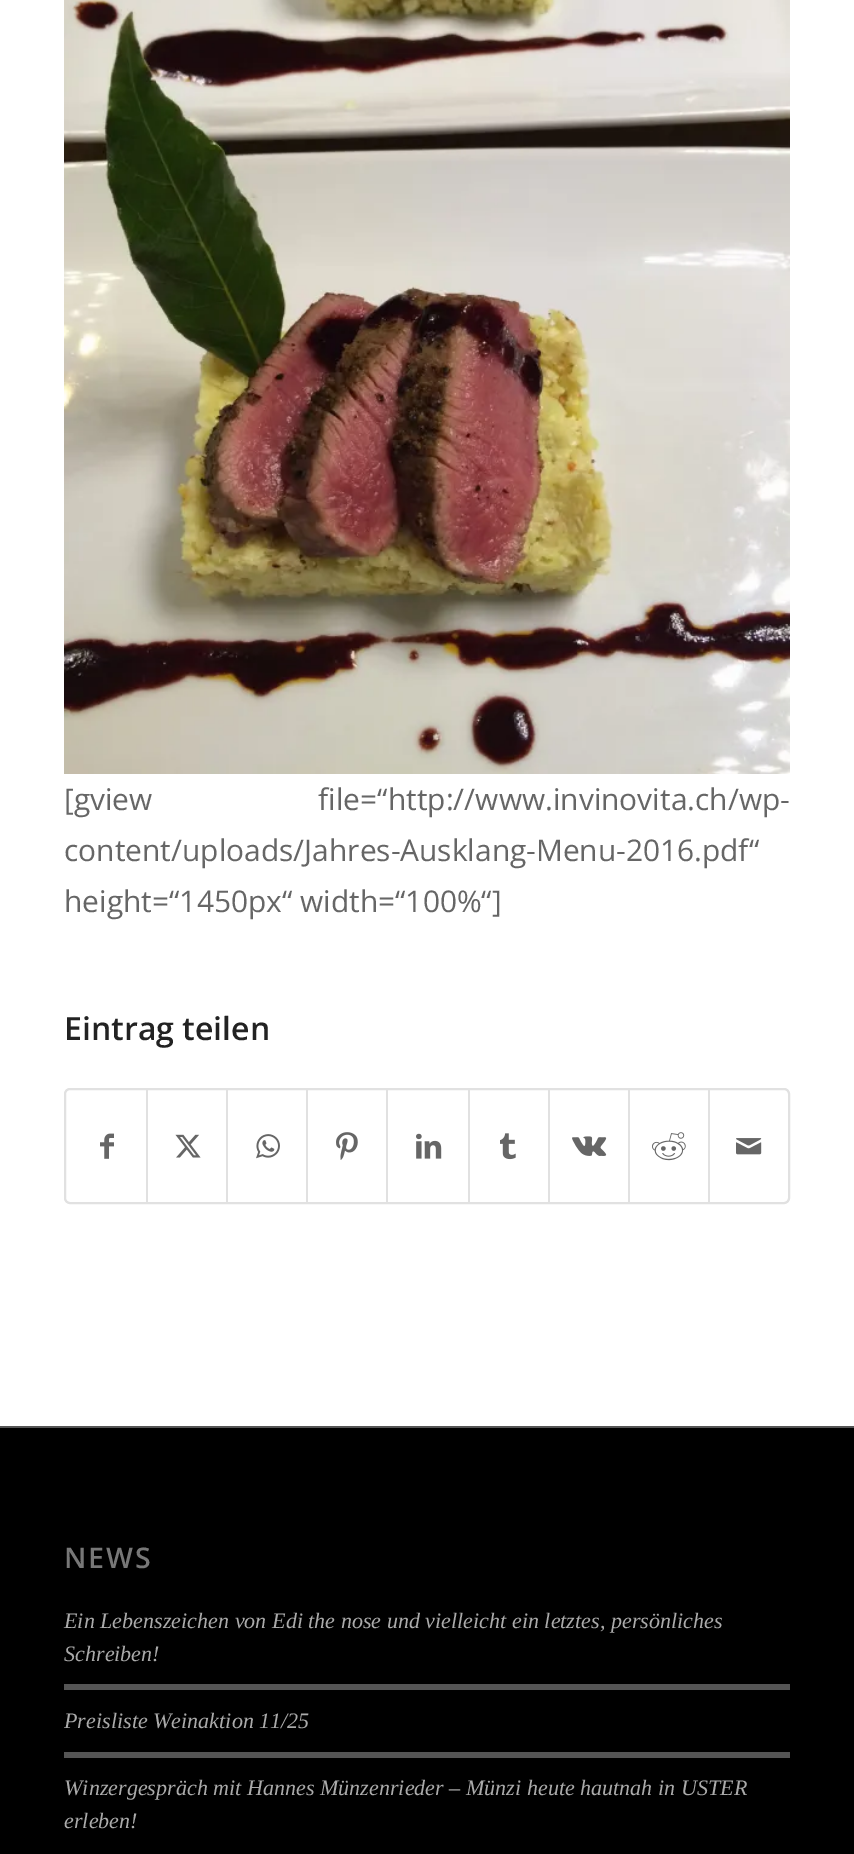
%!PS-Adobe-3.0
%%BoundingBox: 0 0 854 1854
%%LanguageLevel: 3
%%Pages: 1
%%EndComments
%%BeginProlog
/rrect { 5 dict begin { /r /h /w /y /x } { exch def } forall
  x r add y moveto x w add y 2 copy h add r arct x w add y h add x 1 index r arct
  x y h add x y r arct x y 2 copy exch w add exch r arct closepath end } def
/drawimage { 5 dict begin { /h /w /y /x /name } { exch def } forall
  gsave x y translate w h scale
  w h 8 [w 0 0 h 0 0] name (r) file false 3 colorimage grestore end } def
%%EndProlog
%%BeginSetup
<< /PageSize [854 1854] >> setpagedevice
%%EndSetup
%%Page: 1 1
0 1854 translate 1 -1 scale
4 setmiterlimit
1 setgray
0 0 854 1854 rectfill
(images/1.raw) 64 0 726 774 drawimage
0.882 setgray
2 setlinewidth
65 1089 724 114 5 rrect stroke
(images/2.raw) 100 1133 14 26 drawimage
146 1090 2 112 rectfill
(images/3.raw) 175 1134 26 24 drawimage
226 1090 2 112 rectfill
(images/4.raw) 256 1134 24 25 drawimage
306 1090 2 112 rectfill
(images/5.raw) 336 1132 22 28 drawimage
386 1090 2 112 rectfill
(images/6.raw) 416 1133 26 26 drawimage
468 1090 2 112 rectfill
(images/7.raw) 500 1133 16 27 drawimage
548 1090 2 112 rectfill
(images/8.raw) 572 1136 35 20 drawimage
628 1090 2 112 rectfill
(images/9.raw) 652 1132 34 29 drawimage
708 1090 2 112 rectfill
(images/10.raw) 736 1138 26 17 drawimage
0 setgray
0 1428 854 426 rectfill
0.333 setgray
0 1426 854 2 rectfill
64 1684 726 6 rectfill
64 1752 726 6 rectfill
/OpenSans-Regular [29.9 0 0 -29.9 0 0] selectfont
0.4 setgray
64 810 moveto 158 0 32 ([gview file=“http://www.invinovita.ch/wp-) widthshow
64 861 moveto (content/uploads/Jahres-Ausklang-Menu-2016.pdf“) show
64 912 moveto (height=“1450px“ width=“100%“]) show
/OpenSans-SemiBold [32 0 0 -32 0 0] selectfont
0.133 setgray
64 1040 moveto (Eintrag teilen) show
/OpenSans-SemiBold [28.5 0 0 -28.5 0 0] selectfont
0.467 setgray
64 1568 moveto 2 0 (NEWS) ashow
/LiberationSerif-Italic [22.1 0 0 -22.1 0 0] selectfont
0.667 setgray
64 1628 moveto (Ein Lebenszeichen von Edi the nose und vielleicht ein letztes, persönliches) show
64 1661 moveto (Schreiben!) show
64 1728 moveto (Preisliste Weinaktion 11/25) show
64 1795 moveto (Winzergespräch mit Hannes Münzenrieder – Münzi heute hautnah in USTER) show
64 1828 moveto (erleben!) show
showpage
%%EOF
